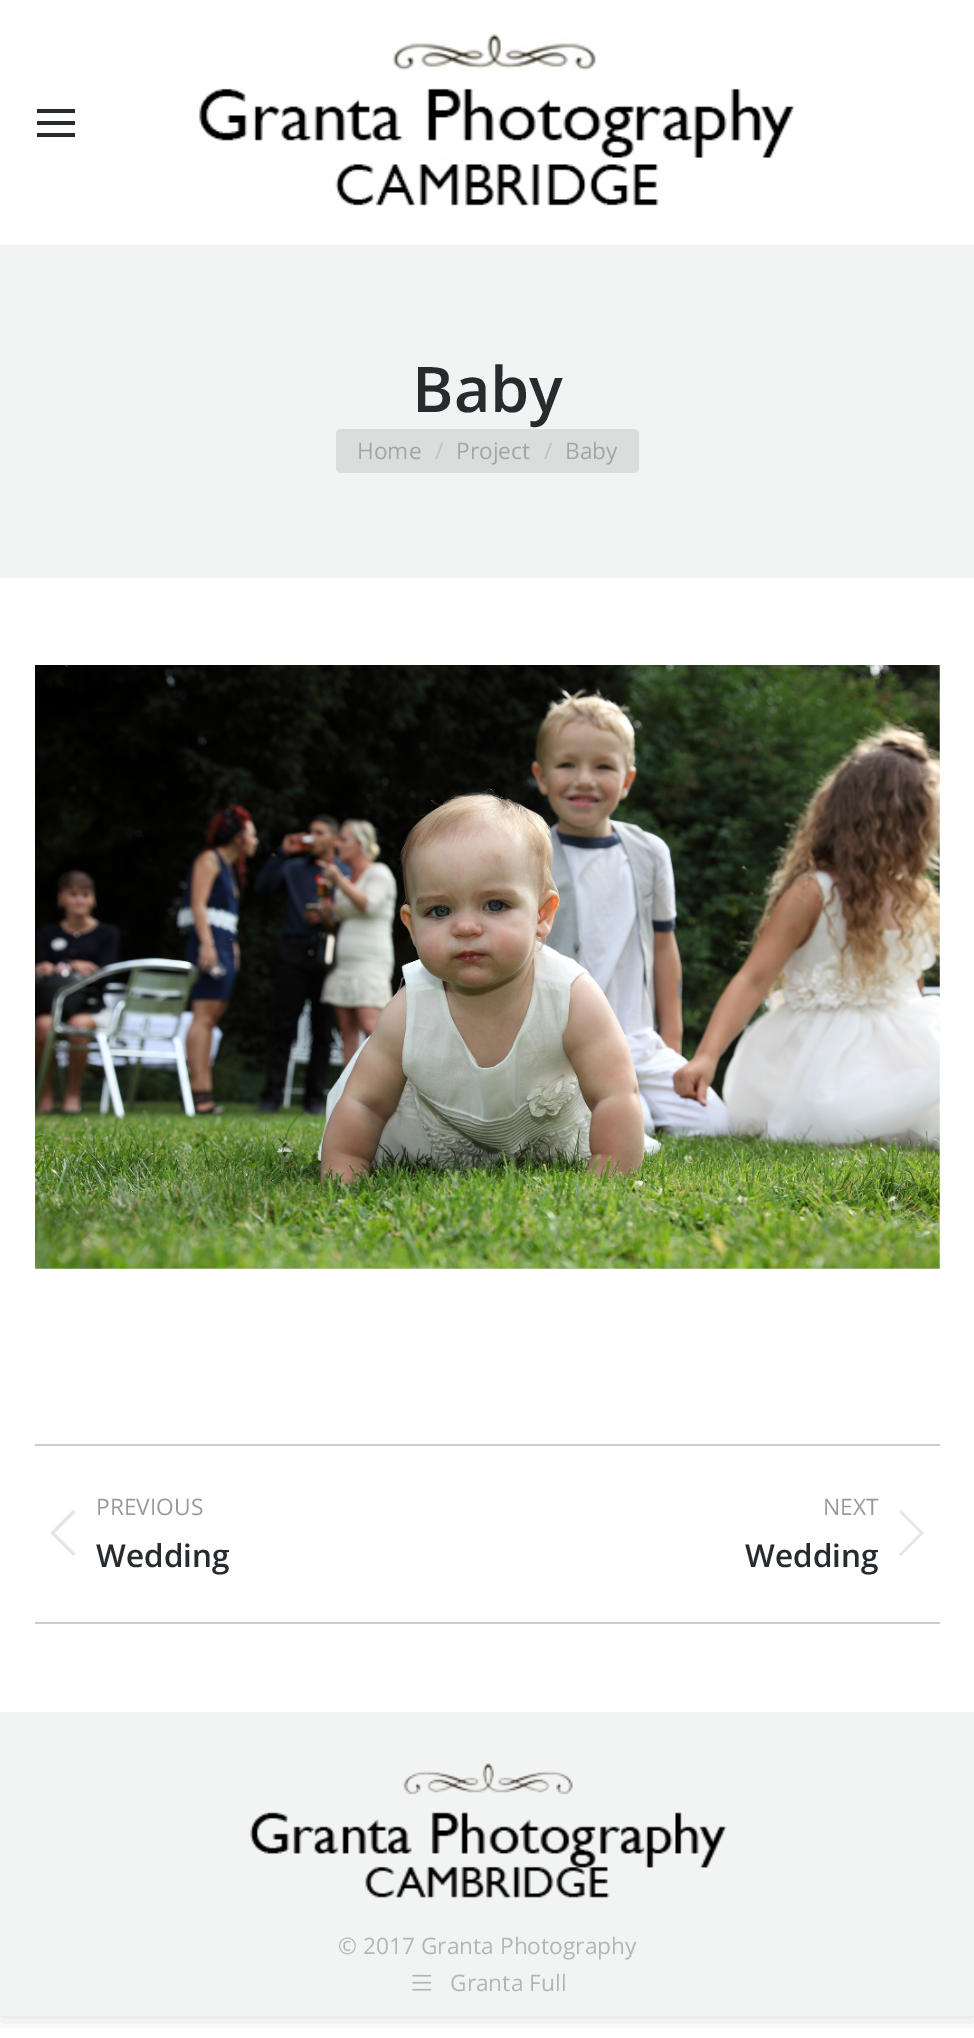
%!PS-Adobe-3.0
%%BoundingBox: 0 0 974 2038
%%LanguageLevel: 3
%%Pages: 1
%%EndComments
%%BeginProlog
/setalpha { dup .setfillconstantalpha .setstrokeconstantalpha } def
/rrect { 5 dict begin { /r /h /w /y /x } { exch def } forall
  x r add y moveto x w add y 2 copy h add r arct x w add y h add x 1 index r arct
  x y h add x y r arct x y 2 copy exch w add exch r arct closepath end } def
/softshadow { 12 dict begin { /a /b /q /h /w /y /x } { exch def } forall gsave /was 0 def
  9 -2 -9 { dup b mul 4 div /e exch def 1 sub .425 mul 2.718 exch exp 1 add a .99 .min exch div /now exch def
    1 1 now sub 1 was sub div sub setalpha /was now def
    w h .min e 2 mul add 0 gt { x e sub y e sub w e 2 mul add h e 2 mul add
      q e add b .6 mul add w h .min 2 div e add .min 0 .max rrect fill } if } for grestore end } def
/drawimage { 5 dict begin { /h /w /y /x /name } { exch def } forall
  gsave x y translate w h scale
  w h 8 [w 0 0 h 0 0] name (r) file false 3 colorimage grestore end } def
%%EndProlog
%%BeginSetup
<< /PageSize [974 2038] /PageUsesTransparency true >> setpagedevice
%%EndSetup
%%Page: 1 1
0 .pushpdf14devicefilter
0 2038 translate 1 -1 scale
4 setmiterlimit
1 setgray
0 0 974 2038 rectfill
gsave
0 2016 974 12 rectclip
0 setgray
0 0 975 2016 0 10.5 0.15 softshadow
grestore
0.149 0.169 0.18 setrgbcolor
37 109 38 4 rectfill
37 121 38 4 rectfill
37 133 38 4 rectfill
(images/1.raw) 199 33 596 173 drawimage
0.949 0.953 0.953 setrgbcolor
0 245 974 333 rectfill
0.859 0.867 0.867 setrgbcolor
336 429 303 44 5 rrect fill
(images/2.raw) 35 665 905 604 drawimage
0.8 setgray
35 1444 905 2 rectfill
35 1622 905 2 rectfill
(images/3.raw) 50 1510 26 46 drawimage
0.898 0.902 0.902 setrgbcolor
newpath 900 1511 moveto 901 1510 902 1510 902 1511 curveto 923 1532 lineto 924 1532 924 1533 923 1534 curveto 902 1555 lineto 902 1556 901 1556 900 1555 curveto 899 1554 899 1553 900 1553 curveto 920 1533 lineto 900 1513 lineto closepath fill
0.949 0.953 0.953 setrgbcolor
0 1712 974 304 rectfill
(images/4.raw) 250 1763 477 135 drawimage
(images/5.raw) 412 1974 20 17 drawimage
/OpenSans-SemiBold [63 0 0 -63 0 0] selectfont
0.149 0.169 0.18 setrgbcolor
412 412 moveto (Baby) show
/OpenSans-Regular [22.75 0 0 -22.75 0 0] selectfont
0.635 0.647 0.651 setrgbcolor
357 459 moveto (Home) show
0.749 0.757 0.761 setrgbcolor
435 459 moveto (/) show
0.635 0.647 0.651 setrgbcolor
456 459 moveto (Project) show
0.749 0.757 0.761 setrgbcolor
544 459 moveto (/) show
0.635 0.647 0.651 setrgbcolor
565 459 moveto (Baby) show
0.6 setgray
96 1515 moveto (PREVIOUS) show
/OpenSans-SemiBold [31.5 0 0 -31.5 0 0] selectfont
0.149 0.169 0.18 setrgbcolor
96 1567 moveto (Wedding) show
/OpenSans-Regular [22.75 0 0 -22.75 0 0] selectfont
0.6 setgray
823 1515 moveto (NEXT) show
/OpenSans-SemiBold [31.5 0 0 -31.5 0 0] selectfont
0.149 0.169 0.18 setrgbcolor
745 1567 moveto (Wedding) show
/OpenSans-Regular [22.75 0 0 -22.75 0 0] selectfont
0.702 0.71 0.714 setrgbcolor
338 1954 moveto (© 2017 Granta Photography) show
450 1991 moveto (Granta Full) show
.poppdf14devicefilter showpage
%%EOF
